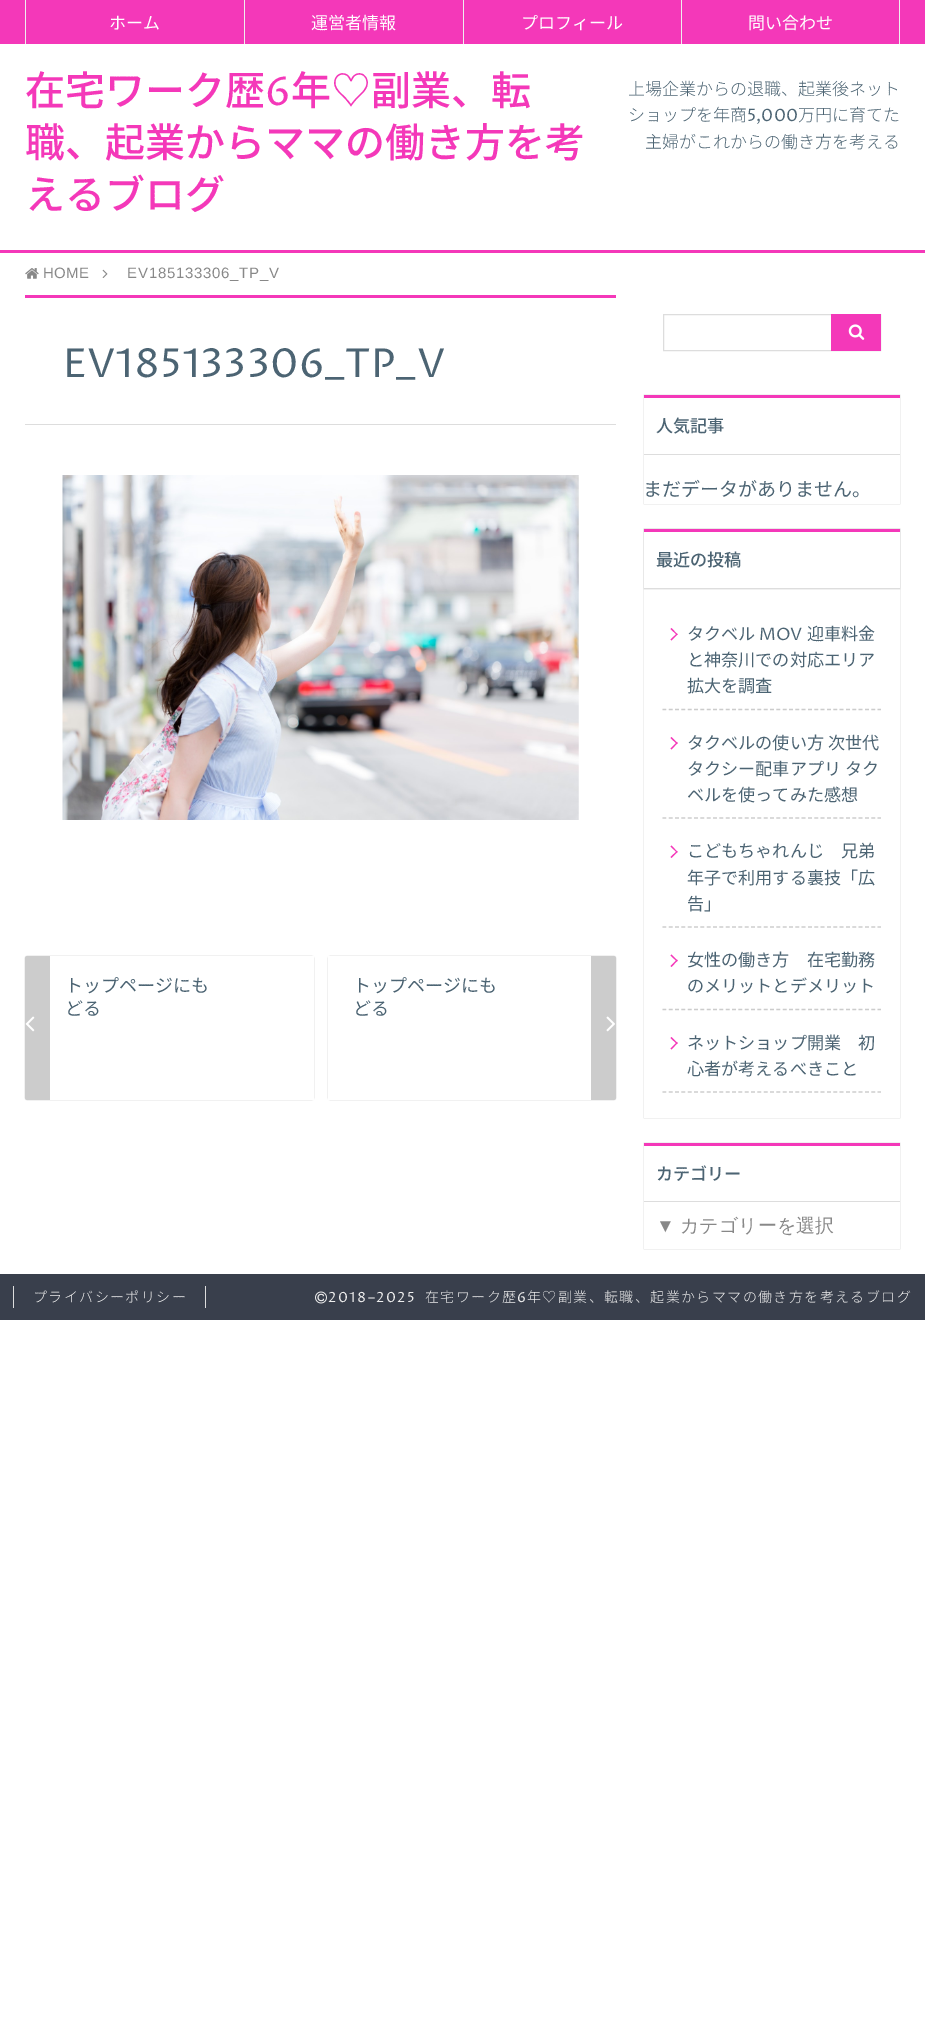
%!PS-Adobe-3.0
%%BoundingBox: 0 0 925 2021
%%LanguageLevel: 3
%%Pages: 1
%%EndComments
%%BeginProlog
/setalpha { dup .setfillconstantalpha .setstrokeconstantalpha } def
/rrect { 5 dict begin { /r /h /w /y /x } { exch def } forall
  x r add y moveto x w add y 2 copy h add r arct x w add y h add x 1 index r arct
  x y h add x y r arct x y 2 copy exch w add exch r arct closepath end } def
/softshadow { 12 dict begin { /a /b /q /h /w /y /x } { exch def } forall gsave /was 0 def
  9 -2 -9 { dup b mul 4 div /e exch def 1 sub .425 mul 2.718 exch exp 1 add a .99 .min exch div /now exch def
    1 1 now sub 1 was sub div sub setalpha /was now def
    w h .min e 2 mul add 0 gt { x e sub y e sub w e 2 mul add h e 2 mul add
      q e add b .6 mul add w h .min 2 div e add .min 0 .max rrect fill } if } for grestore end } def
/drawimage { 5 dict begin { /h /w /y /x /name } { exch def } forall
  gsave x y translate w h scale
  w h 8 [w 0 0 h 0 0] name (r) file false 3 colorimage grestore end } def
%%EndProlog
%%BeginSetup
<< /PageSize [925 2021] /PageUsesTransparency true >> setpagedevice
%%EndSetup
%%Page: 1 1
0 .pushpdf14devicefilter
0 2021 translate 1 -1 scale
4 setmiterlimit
1 setgray
0 0 925 2021 rectfill
0.957 0.22 0.725 setrgbcolor
0 0 925 44 rectfill
0.933 setgray
25 0 1 44 rectfill
244 0 1 44 rectfill
463 0 1 44 rectfill
899 0 1 44 rectfill
681 0 1 44 rectfill
0.957 0.22 0.725 setrgbcolor
0 250 925 3 rectfill
(images/1.raw) 25 268 14 11 drawimage
(images/2.raw) 102 269 6 9 drawimage
25 295 591 3 rectfill
0.867 setgray
25 424 591 1 rectfill
(images/3.raw) 62 475 517 345 drawimage
gsave
newpath 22 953 moveto 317 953 lineto 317 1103 lineto 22 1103 lineto closepath 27.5 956 moveto 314 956 lineto 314 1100 lineto 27.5 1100 lineto 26 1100 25 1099 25 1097.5 curveto 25 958.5 lineto 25 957 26 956 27.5 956 curveto closepath eoclip newpath
0.8 setgray
25 956 289 144 2.5 0.5 1 softshadow
grestore
0.6 setalpha
1 setgray
newpath 27.5 956 moveto 314 956 lineto 314 1100 lineto 27.5 1100 lineto 26 1100 25 1099 25 1097.5 curveto 25 958.5 lineto 25 957 26 956 27.5 956 curveto closepath fill
1 setalpha
0.8 setgray
newpath 27.5 956 moveto 50 956 lineto 50 1100 lineto 27.5 1100 lineto 26 1100 25 1099 25 1097.5 curveto 25 958.5 lineto 25 957 26 956 27.5 956 curveto closepath fill
(images/4.raw) 25 1016 10 16 drawimage
gsave
newpath 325 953 moveto 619 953 lineto 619 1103 lineto 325 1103 lineto closepath 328 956 moveto 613.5 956 lineto 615 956 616 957 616 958.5 curveto 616 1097.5 lineto 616 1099 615 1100 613.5 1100 curveto 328 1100 lineto closepath eoclip newpath
328 956 288 144 2.5 0.5 1 softshadow
grestore
0.6 setalpha
1 setgray
newpath 328 956 moveto 613.5 956 lineto 615 956 616 957 616 958.5 curveto 616 1097.5 lineto 616 1099 615 1100 613.5 1100 curveto 328 1100 lineto closepath fill
1 setalpha
0.8 setgray
newpath 591 956 moveto 613.5 956 lineto 615 956 616 957 616 958.5 curveto 616 1097.5 lineto 616 1099 615 1100 613.5 1100 curveto 591 1100 lineto closepath fill
(images/5.raw) 606 1016 9 16 drawimage
0.867 setgray
663.5 314.5 217 36 rectstroke
0.957 0.22 0.725 setrgbcolor
831 314 50 37 rectfill
(images/6.raw) 848 324 17 16 drawimage
gsave
newpath 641 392 moveto 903 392 lineto 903 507 lineto 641 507 lineto closepath 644 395 moveto 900 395 lineto 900 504 lineto 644 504 lineto closepath eoclip newpath
0.8 setgray
644 395 256 109 0 0.5 1 softshadow
grestore
0.6 setalpha
1 setgray
644 503 256 1 rectfill
1 setalpha
0.957 0.22 0.725 setrgbcolor
644 395 256 3 rectfill
0.867 setgray
644 454 256 1 rectfill
gsave
newpath 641 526 moveto 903 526 lineto 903 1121 lineto 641 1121 lineto closepath 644 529 moveto 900 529 lineto 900 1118 lineto 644 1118 lineto closepath eoclip newpath
0.8 setgray
644 529 256 589 0 0.5 1 softshadow
grestore
0.6 setalpha
1 setgray
644 1117 256 1 rectfill
1 setalpha
0.8 setgray
644 529 256 60 0 0.5 1 softshadow
1 setgray
644 532 256 56 rectfill
0.957 0.22 0.725 setrgbcolor
644 529 256 3 rectfill
0.867 setgray
644 588 256 1 rectfill
0.957 0.22 0.725 setrgbcolor
newpath 670.5 629 moveto 671.5 628 lineto 677.5 634.5 lineto 677 635 lineto closepath fill
newpath 670.5 639.5 moveto 677 633.5 lineto 677.5 634.5 lineto 671.5 640.5 lineto closepath fill
0.8 setgray
1.2 setlinewidth
[3.75 2.58] 0 setdash
newpath 662.5 709.5 moveto 881 709.5 lineto stroke
0.957 0.22 0.725 setrgbcolor
newpath 670.5 738 moveto 671.5 737 lineto 677.5 743 lineto 677 744 lineto closepath fill
newpath 670.5 748.5 moveto 677 742 lineto 677.5 743 lineto 671.5 749.5 lineto closepath fill
0.8 setgray
newpath 662.5 818 moveto 881 818 lineto stroke
0.957 0.22 0.725 setrgbcolor
newpath 670.5 846.5 moveto 671.5 845.5 lineto 677.5 852 lineto 677 852.5 lineto closepath fill
newpath 670.5 857 moveto 677 851 lineto 677.5 852 lineto 671.5 858 lineto closepath fill
0.8 setgray
newpath 662.5 927 moveto 881 927 lineto stroke
0.957 0.22 0.725 setrgbcolor
newpath 670.5 955.5 moveto 671.5 954.5 lineto 677.5 960.5 lineto 677 961.5 lineto closepath fill
newpath 670.5 966 moveto 677 959.5 lineto 677.5 960.5 lineto 671.5 967 lineto closepath fill
0.8 setgray
newpath 662.5 1009.5 moveto 881 1009.5 lineto stroke
0.957 0.22 0.725 setrgbcolor
newpath 670.5 1038 moveto 671.5 1037 lineto 677.5 1043 lineto 677 1044 lineto closepath fill
newpath 670.5 1048.5 moveto 677 1042 lineto 677.5 1043 lineto 671.5 1049.5 lineto closepath fill
0.8 setgray
newpath 662.5 1092 moveto 881 1092 lineto stroke
644 1143 256 106 0 0.5 1 softshadow
1 setgray
644 1146 256 103 rectfill
0.957 0.22 0.725 setrgbcolor
644 1143 256 3 rectfill
0.867 setgray
644 1201 256 1 rectfill
0.224 0.247 0.298 setrgbcolor
0 1274 925 46 rectfill
0.867 setgray
205 1286 1 22 rectfill
13 1286 1 22 rectfill
(images/7.raw) 315 1291 12 13 drawimage
/NotoSansJP-Regular [17 0 0 -17 0 0] selectfont
1 setgray
109 29 moveto (ホーム) show
311 29 moveto (運営者情報) show
521 29 moveto (プロフィール) show
748 29 moveto (問い合わせ) show
/NotoSansJP-Medium [40 0 0 -40 0 0] selectfont
0.957 0.22 0.725 setrgbcolor
25 105 moveto (在宅ワーク歴) show
/ProzaLibre-Regular [40 0 0 -40 0 0] selectfont
265 105 moveto (6) show
/NotoSansJP-Medium [40 0 0 -40 0 0] selectfont
291 105 moveto (年♡副業、転) show
25 157 moveto (職、起業からママの働き方を考) show
25 209 moveto (えるブログ) show
/NotoSansJP-Light [17 0 0 -17 0 0] selectfont
0.298 0.392 0.451 setrgbcolor
628 95 moveto (上場企業からの退職、起業後ネット) show
628 121 moveto (ショップを年商) show
/ProzaLibre-Regular [17 0 0 -17 0 0] selectfont
747 121 moveto (5,000) show
/NotoSansJP-Light [17 0 0 -17 0 0] selectfont
798 121 moveto (万円に育てた) show
645 148 moveto (主婦がこれからの働き方を考える) show
/LiberationSans-Regular [15 0 0 -15 0 0] selectfont
0.533 setgray
43 278 moveto 0.5 0 (HOME) ashow
127 278 moveto 0.75 0 (EV185133306_TP_V) ashow
/ProzaLibre-Regular [40 0 0 -40 0 0] selectfont
0.298 0.392 0.451 setrgbcolor
63 377 moveto (EV185133306_TP_V) show
/NotoSansJP-Regular [18 0 0 -18 0 0] selectfont
65 992 moveto (トップページにも) show
65 1015 moveto (どる) show
353 992 moveto (トップページにも) show
353 1015 moveto (どる) show
/NotoSansJP-Medium [17.1 0 0 -17.1 0 0] selectfont
656 432 moveto (人気記事) show
/NotoSansJP-Regular [19 0 0 -19 0 0] selectfont
643 496 moveto (まだデータがありません。) show
/NotoSansJP-Medium [17.1 0 0 -17.1 0 0] selectfont
656 566 moveto (最近の投稿) show
/NotoSansJP-Regular [17.1 0 0 -17.1 0 0] selectfont
687 640 moveto (タクベル) show
/ProzaLibre-Regular [17.1 0 0 -17.1 0 0] selectfont
759 640 moveto (MOV) show
/NotoSansJP-Regular [17.1 0 0 -17.1 0 0] selectfont
807 640 moveto (迎車料金) show
687 666 moveto (と神奈川での対応エリア) show
687 692 moveto (拡大を調査) show
687 749 moveto (タクベルの使い方 次世代) show
687 775 moveto (タクシー配車アプリ タク) show
687 801 moveto (ベルを使ってみた感想) show
687 857 moveto (こどもちゃれんじ　兄弟) show
687 884 moveto (年子で利用する裏技「広) show
687 910 moveto (告」) show
687 966 moveto (女性の働き方　在宅勤務) show
687 992 moveto (のメリットとデメリット) show
687 1049 moveto (ネットショップ開業　初) show
687 1075 moveto (心者が考えるべきこと) show
/NotoSansJP-Medium [17.1 0 0 -17.1 0 0] selectfont
656 1180 moveto (カテゴリー) show
/LiberationSans-Regular [19 0 0 -19 0 0] selectfont
0.533 setgray
656 1232 moveto (▼) show
/WenQuanYiZenHei-Medium [19 0 0 -19 0 0] selectfont
680 1232 moveto (カテゴリーを選択) show
/NotoSansJP-Light [14 0 0 -14 0 0] selectfont
0.933 setgray
33 1302 moveto 1.4 0 (プライバシーポリシー) ashow
/ProzaLibre-Regular [14 0 0 -14 0 0] selectfont
328 1302 moveto 1.4 0 (2018–2025) ashow
/NotoSansJP-Light [14 0 0 -14 0 0] selectfont
425 1302 moveto 1.4 0 (在宅ワーク歴) ashow
/ProzaLibre-Regular [14 0 0 -14 0 0] selectfont
517 1302 moveto 1.4 0 (6) ashow
/NotoSansJP-Light [14 0 0 -14 0 0] selectfont
527 1302 moveto 1.4 0 (年♡副業、転職、起業からママの働き方を考えるブログ) ashow
.poppdf14devicefilter showpage
%%EOF
